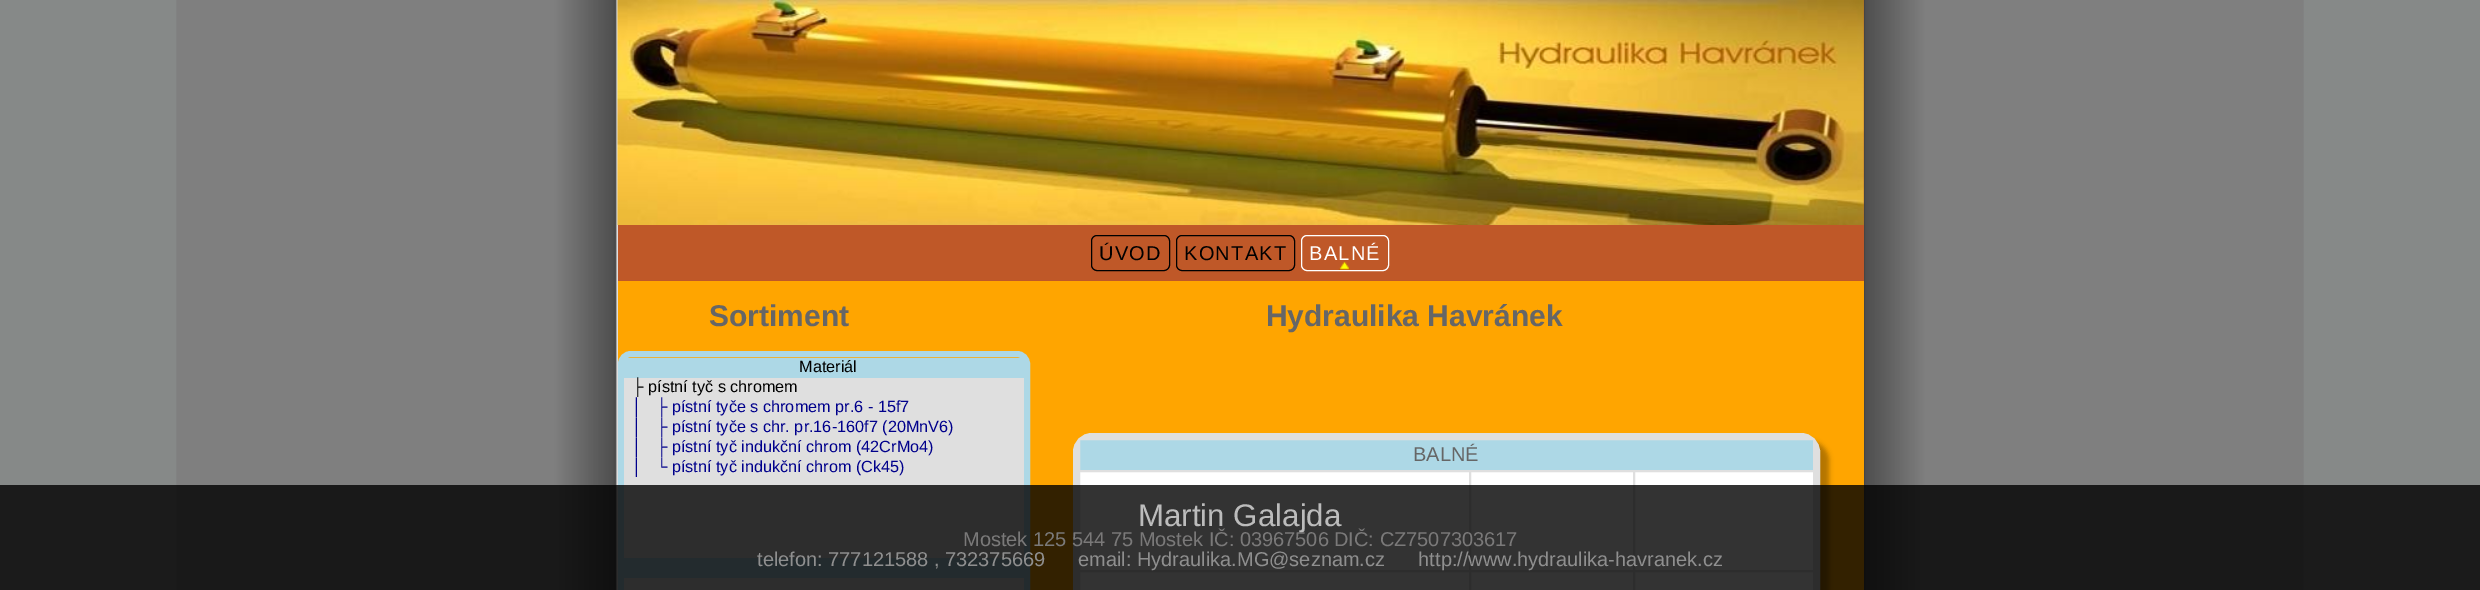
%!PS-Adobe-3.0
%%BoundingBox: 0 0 2480 590
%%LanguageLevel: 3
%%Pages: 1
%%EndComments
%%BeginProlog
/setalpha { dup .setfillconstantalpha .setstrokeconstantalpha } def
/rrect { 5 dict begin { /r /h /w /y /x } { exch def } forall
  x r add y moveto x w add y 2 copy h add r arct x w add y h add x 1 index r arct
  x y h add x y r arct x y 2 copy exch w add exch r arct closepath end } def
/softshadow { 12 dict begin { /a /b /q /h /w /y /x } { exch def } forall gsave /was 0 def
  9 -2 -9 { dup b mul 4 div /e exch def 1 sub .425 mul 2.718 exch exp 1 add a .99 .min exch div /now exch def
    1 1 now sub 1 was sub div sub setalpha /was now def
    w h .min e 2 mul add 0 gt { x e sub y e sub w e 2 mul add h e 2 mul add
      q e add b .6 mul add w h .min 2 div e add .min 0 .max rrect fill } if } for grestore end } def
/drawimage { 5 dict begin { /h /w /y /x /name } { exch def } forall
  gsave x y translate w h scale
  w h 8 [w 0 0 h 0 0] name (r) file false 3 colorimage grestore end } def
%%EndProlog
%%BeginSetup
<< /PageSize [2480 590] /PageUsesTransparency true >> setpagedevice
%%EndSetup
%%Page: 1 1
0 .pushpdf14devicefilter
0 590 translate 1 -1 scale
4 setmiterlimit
0.525 0.537 0.533 setrgbcolor
0 0 2480 590 rectfill
(images/1.raw) 176 0 2128 590 drawimage
1 0.647 0 setrgbcolor
618 0 1246 590 rectfill
(images/2.raw) 617 0 1247 225 drawimage
0.749 0.345 0.157 setrgbcolor
618 225 1246 56 rectfill
0 setgray
1091.5 235.5 78 35 5.5 rrect stroke
1176.5 235.5 118 35 5.5 rrect stroke
(images/3.raw) 1338 261 12 9 drawimage
1 setgray
1301.5 235.5 87 35 5.5 rrect stroke
0.678 0.847 0.902 setrgbcolor
6 setlinewidth
621 354 406 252 10 rrect stroke
624 358 400 20 rectfill
0.875 setgray
624 378 400 180 rectfill
0.678 0.847 0.902 setrgbcolor
624 558 400 20 rectfill
0.875 setgray
624 578 400 12 rectfill
0 setgray
1081 441 748 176 19 2.5 0.3 softshadow
1 setgray
1076 436 741 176 16 rrect gsave fill grestore
0.875 setgray
stroke
0.678 0.847 0.902 setrgbcolor
newpath 1079.5 439.5 moveto 1813.5 439.5 lineto 1813.5 470.5 lineto 1079.5 470.5 lineto closepath gsave fill grestore
0.875 setgray
1 setlinewidth
stroke
1079.5 471.5 390 99 rectstroke
1470.5 471.5 163 99 rectstroke
1634.5 471.5 179 99 rectstroke
1079.5 571.5 390 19 rectstroke
1470.5 571.5 163 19 rectstroke
1634.5 571.5 179 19 rectstroke
0.8 setalpha
0 setgray
0 485 2480 105 rectfill
/LiberationSans-Regular [20 0 0 -20 0 0] selectfont
1 setalpha
1099 260 moveto 1.25 0 (ÚVOD) ashow
1184 260 moveto 1.25 0 (KONTAKT) ashow
1 setgray
1309 260 moveto 1.25 0 (BALNÉ) ashow
/LiberationSans-Bold [30 0 0 -30 0 0] selectfont
0.4 setgray
709 326 moveto (Sortiment                                                  Hydraulika Havránek) show
/LiberationSans-Regular [16.25 0 0 -16.25 0 0] selectfont
0 setgray
799 372 moveto (Materiál) show
632 392 moveto (├ pístní tyč s chromem) show
0 0 0.545 setrgbcolor
632 412 moveto (│   ├ pístní tyče s chromem pr.6 - 15f7) show
632 432 moveto (│   ├ pístní tyče s chr. pr.16-160f7 \(20MnV6\)) show
632 452 moveto (│   ├ pístní tyč indukční chrom \(42CrMo4\)) show
632 472 moveto (│   └ pístní tyč indukční chrom \(Ck45\)) show
/LiberationSans-Regular [20 0 0 -20 0 0] selectfont
0.4 setgray
1413 461 moveto (BALNÉ) show
/LiberationSans-Regular [31.25 0 0 -31.25 0 0] selectfont
0.737 setgray
1138 526 moveto (Martin Galajda) show
/LiberationSans-Regular [20 0 0 -20 0 0] selectfont
0.478 0.475 0.475 setrgbcolor
963 546 moveto (Mostek 125 544 75 Mostek IČ: 03967506) show
1334 546 moveto (DIČ: CZ7507303617) show
0.561 setgray
757 566 moveto (telefon: 777121588 , 732375669) show
1078 566 moveto (email: Hydraulika.MG@seznam.cz      http://www.hydraulika-havranek.cz) show
.poppdf14devicefilter showpage
%%EOF
